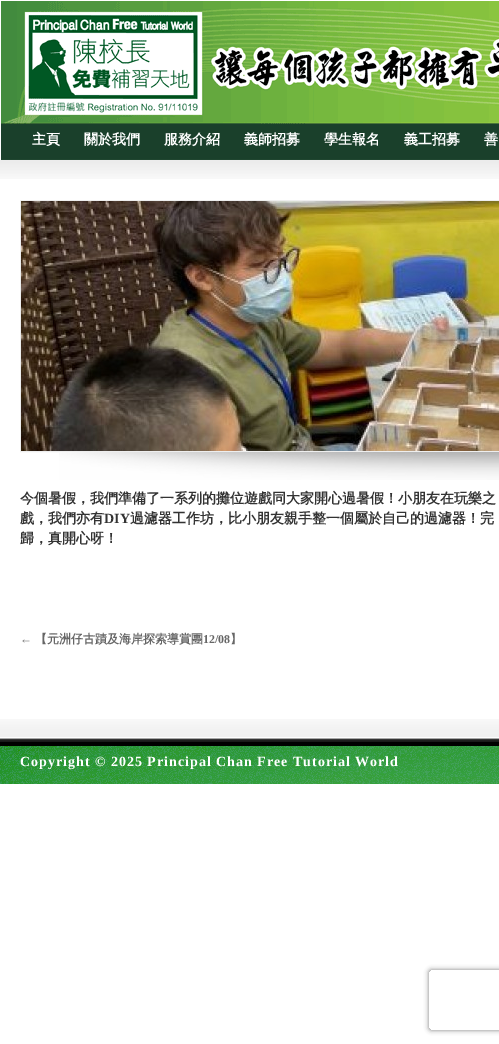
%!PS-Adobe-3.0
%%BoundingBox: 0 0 499 1044
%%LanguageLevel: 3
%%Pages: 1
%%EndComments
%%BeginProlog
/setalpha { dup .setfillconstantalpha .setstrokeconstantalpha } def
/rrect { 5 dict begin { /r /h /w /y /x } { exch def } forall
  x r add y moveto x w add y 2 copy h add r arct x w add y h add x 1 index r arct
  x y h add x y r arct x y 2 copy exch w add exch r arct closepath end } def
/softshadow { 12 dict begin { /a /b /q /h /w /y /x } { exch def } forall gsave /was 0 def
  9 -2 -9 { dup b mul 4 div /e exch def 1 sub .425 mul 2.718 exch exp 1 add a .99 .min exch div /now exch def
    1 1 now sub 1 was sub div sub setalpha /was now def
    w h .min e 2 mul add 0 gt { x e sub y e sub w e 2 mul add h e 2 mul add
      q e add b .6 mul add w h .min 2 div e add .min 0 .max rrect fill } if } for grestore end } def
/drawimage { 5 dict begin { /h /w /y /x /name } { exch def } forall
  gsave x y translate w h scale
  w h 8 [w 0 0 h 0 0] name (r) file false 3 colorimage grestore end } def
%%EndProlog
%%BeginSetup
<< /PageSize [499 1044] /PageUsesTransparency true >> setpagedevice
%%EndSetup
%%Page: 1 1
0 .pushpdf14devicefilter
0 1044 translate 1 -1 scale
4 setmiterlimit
1 setgray
0 0 499 1044 rectfill
(images/1.raw) 1 1 498 159 drawimage
(images/2.raw) 0 160 499 19 drawimage
0.933 setgray
20.5 200.5 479 251 rectstroke
(images/3.raw) 21 201 478 250 drawimage
(images/4.raw) 59 452 440 28 drawimage
(images/5.raw) 0 719 499 20 drawimage
(images/6.raw) 0 739 499 45 drawimage
(images/7.raw) 0 740 499 44 drawimage
gsave
newpath 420 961 moveto 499 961 lineto 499 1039 lineto 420 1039 lineto closepath 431 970 moveto 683 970 lineto 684 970 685 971 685 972 curveto 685 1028 lineto 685 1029 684 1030 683 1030 curveto 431 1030 lineto 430 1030 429 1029 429 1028 curveto 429 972 lineto 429 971 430 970 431 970 curveto closepath eoclip newpath
0.502 setgray
429 970 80 60 2 2.5 1 softshadow
grestore
/WenQuanYiZenHei-Bold [14 0 0 -14 0 0] selectfont
1 setgray
32 144 moveto (主頁) show
84 144 moveto (關於我們) show
164 144 moveto (服務介紹) show
244 144 moveto (義師招募) show
324 144 moveto (學生報名) show
404 144 moveto (義工招募) show
484 144 moveto (善) show
0.2 setgray
20 503 moveto -1 0 32 (今個暑假，我們準備了一系列的攤位遊戲同大家開心過暑假！小朋友在玩樂之) widthshow
20 523 moveto (戲，我們亦有) show
/LiberationSerif-Bold [14 0 0 -14 0 0] selectfont
104 523 moveto (DIY) show
/WenQuanYiZenHei-Bold [14 0 0 -14 0 0] selectfont
130 523 moveto -1 0 32 (過濾器工作坊，比小朋友親手整一個屬於自己的過濾器！完) widthshow
20 543 moveto (歸，真開心呀！) show
/LiberationSerif-Bold [12 0 0 -12 0 0] selectfont
0.4 setgray
20 643 moveto (←) show
/WenQuanYiZenHei-Bold [12 0 0 -12 0 0] selectfont
35 643 moveto (【元洲仔古蹟及海岸探索導賞團) show
/LiberationSerif-Bold [12 0 0 -12 0 0] selectfont
203 643 moveto (12/08) show
/WenQuanYiZenHei-Bold [12 0 0 -12 0 0] selectfont
230 643 moveto (】) show
/LiberationSerif-Bold [14 0 0 -14 0 0] selectfont
1 setgray
20 766 moveto 1 0 (Copyright © 2025 Principal Chan Free Tutorial World) ashow
.poppdf14devicefilter showpage
%%EOF
